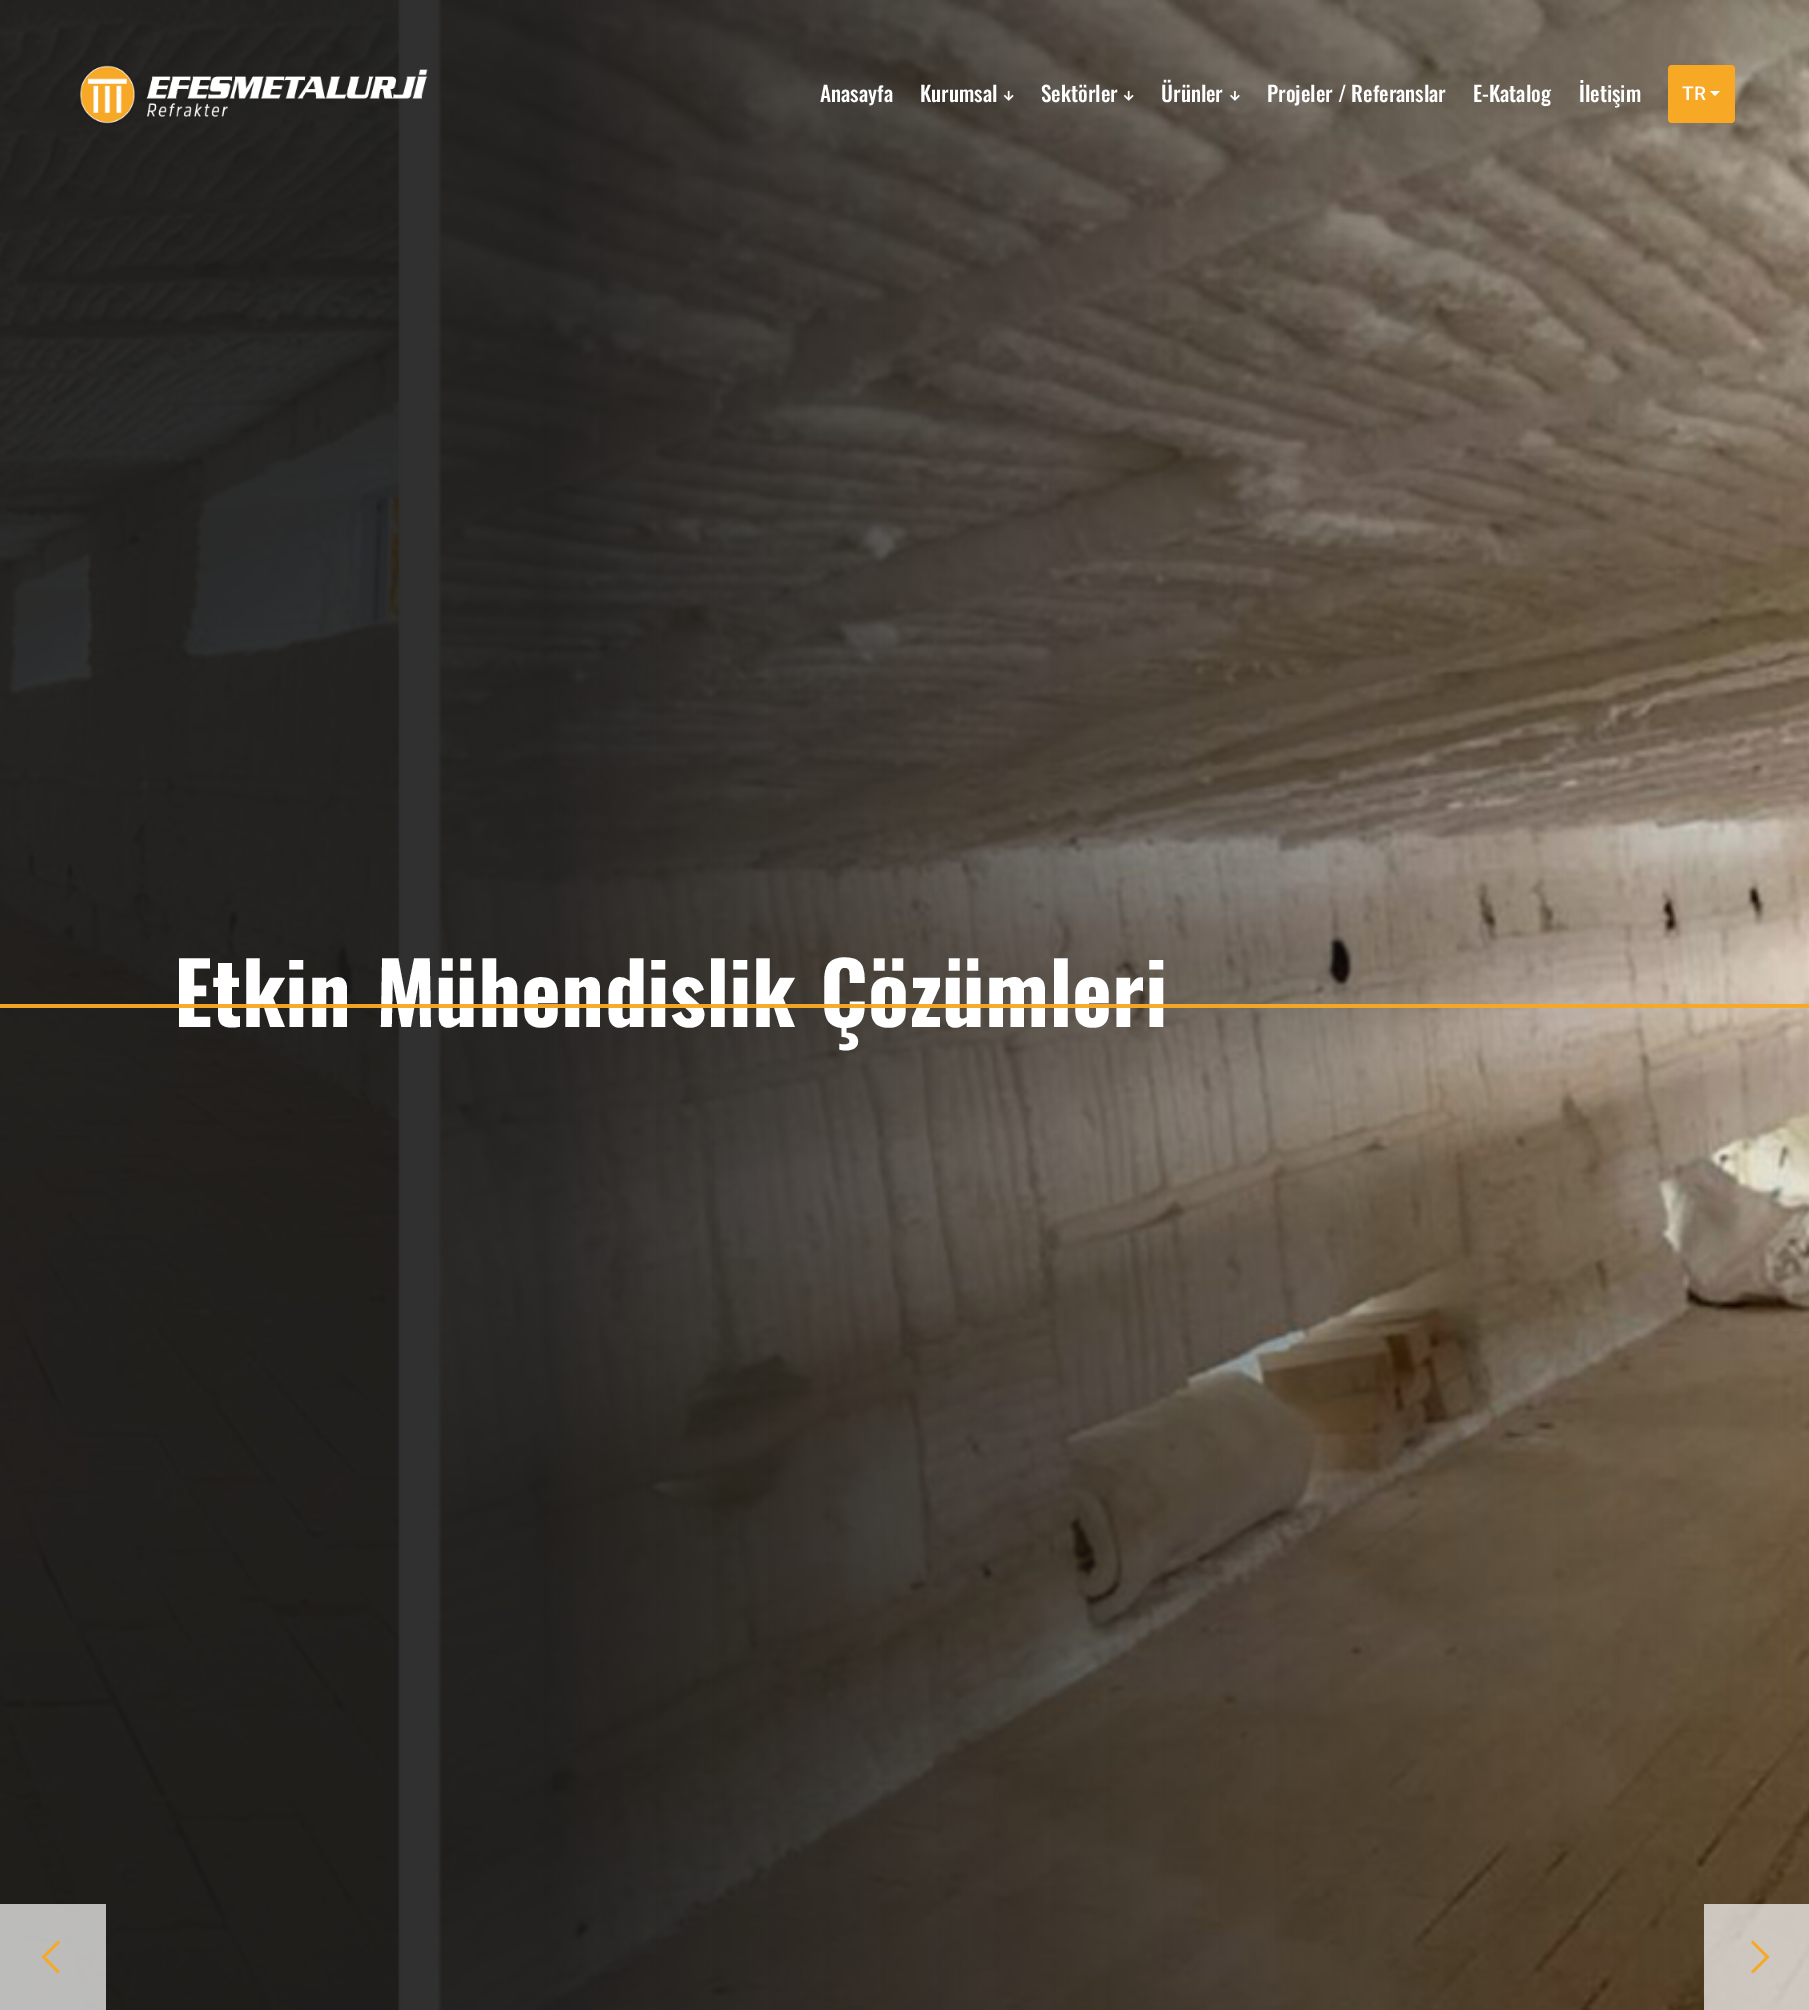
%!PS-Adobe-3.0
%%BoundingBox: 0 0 1809 2010
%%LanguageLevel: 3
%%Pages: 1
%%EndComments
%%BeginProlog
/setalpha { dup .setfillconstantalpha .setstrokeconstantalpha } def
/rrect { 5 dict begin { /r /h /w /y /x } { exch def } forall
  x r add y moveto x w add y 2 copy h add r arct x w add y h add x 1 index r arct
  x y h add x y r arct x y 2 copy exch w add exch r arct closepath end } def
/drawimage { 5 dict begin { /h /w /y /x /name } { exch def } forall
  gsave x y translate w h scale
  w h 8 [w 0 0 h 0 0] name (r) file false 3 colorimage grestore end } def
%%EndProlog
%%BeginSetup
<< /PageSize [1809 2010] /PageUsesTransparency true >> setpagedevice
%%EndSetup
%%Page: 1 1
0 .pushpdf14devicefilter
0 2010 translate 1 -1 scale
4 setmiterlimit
1 setgray
0 0 1809 2010 rectfill
(images/5.raw) 0 0 1809 2010 drawimage
(images/1.raw) 78 64 350 61 drawimage
(images/2.raw) 1003 90 11 11 drawimage
(images/3.raw) 1123 90 11 11 drawimage
(images/4.raw) 1230 90 10 11 drawimage
0.969 0.659 0.141 setrgbcolor
1668 65 67 58 4 rrect fill
1 setgray
newpath 1710 91 moveto 1720 91 lineto 1715 96 lineto closepath fill
0.7 setalpha
0 1904 106 106 rectfill
1 setalpha
0.969 0.659 0.141 setrgbcolor
newpath 58 1940.5 moveto 41.5 1957 lineto 58 1973.5 lineto 60 1971.5 lineto 45.5 1957 lineto 60 1942.5 lineto closepath fill
0.7 setalpha
1 setgray
1704 1904 105 106 rectfill
1 setalpha
0.969 0.659 0.141 setrgbcolor
newpath 1753 1940.5 moveto 1751 1942.5 lineto 1765.5 1957 lineto 1751 1971.5 lineto 1753 1973.5 lineto 1769.5 1957 lineto closepath fill
0.05 setalpha
1 setgray
0 1004 1809 4 rectfill
/Oswald-Medium [21.25 0 0 -21.25 0 0] selectfont
1 setalpha
820 102 moveto (Anasayfa) show
920 102 moveto (Kurumsal) show
1041 102 moveto (Sektörler) show
1161 102 moveto (Ürünler) show
1267 102 moveto (Projeler / Referanslar) show
1473 102 moveto (E-Katalog) show
1579 102 moveto (İletişim) show
/Roboto-Medium [19 0 0 -19 0 0] selectfont
1682 100 moveto (TR) show
/Oswald-Bold [85 0 0 -85 0 0] selectfont
174 1027 moveto 3 0 32 (Etkin Mühendislik Çözümleri) widthshow
0.97 setalpha
0.969 0.659 0.141 setrgbcolor
0 1004 1809 4 rectfill
.poppdf14devicefilter showpage
%%EOF
